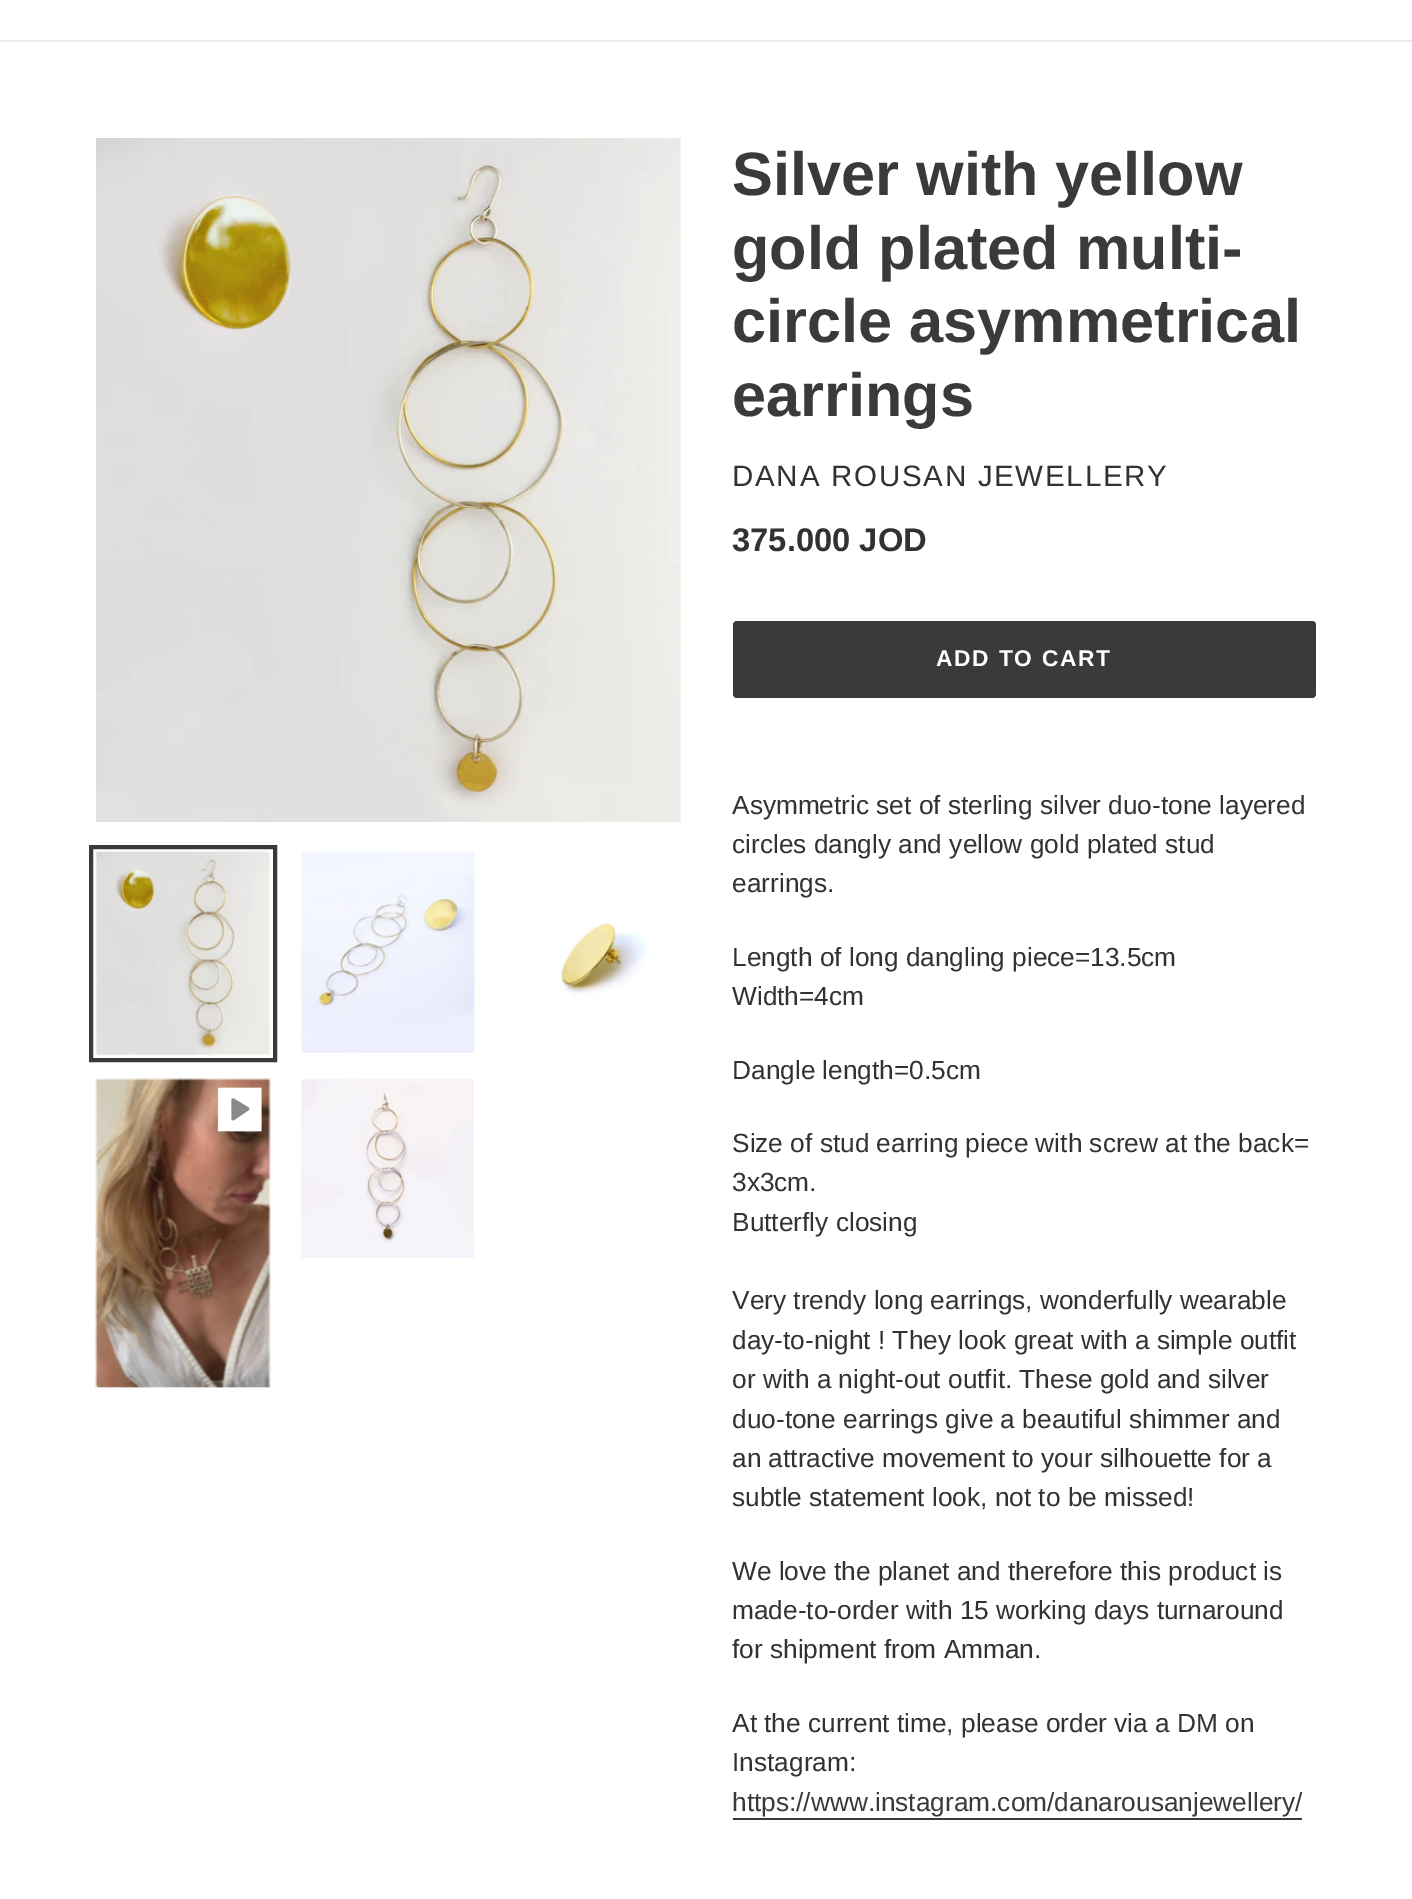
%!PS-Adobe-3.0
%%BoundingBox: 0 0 1412 1899
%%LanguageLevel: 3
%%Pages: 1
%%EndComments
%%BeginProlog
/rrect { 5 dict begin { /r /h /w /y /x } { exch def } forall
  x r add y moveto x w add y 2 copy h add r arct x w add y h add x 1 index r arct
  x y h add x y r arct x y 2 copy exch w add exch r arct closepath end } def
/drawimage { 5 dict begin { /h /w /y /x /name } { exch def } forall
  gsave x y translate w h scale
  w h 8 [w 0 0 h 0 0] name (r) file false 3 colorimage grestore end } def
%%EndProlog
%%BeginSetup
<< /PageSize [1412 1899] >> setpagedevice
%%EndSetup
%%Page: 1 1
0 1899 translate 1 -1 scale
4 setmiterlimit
1 setgray
0 0 1412 1899 rectfill
0.922 setgray
0 40 1412 2 rectfill
(images/1.raw) 96 138 585 684 drawimage
0.227 setgray
4 setlinewidth
91 847 184 213 rectstroke
(images/2.raw) 95 851 175 205 drawimage
(images/3.raw) 301 851 174 202 drawimage
(images/4.raw) 558 923 91 76 drawimage
(images/5.raw) 95 1078 176 310 drawimage
(images/6.raw) 217 1087 45 45 drawimage
(images/7.raw) 301 1079 173 179 drawimage
733 621 583 77 4 rrect fill
733 1818 569 2 rectfill
/LiberationSans-Bold [61.25 0 0 -61.25 0 0] selectfont
732 195 moveto (Silver with yellow) show
732 269 moveto (gold plated multi-) show
732 342 moveto (circle asymmetrical) show
732 416 moveto (earrings) show
/LiberationSans-Regular [29.5 0 0 -29.5 0 0] selectfont
0.2 0.196 0.196 setrgbcolor
732 486 moveto 1.75 0 (DANA ROUSAN JEWELLERY) ashow
/LiberationSans-Bold [32.75 0 0 -32.75 0 0] selectfont
732 551 moveto (375.000 JOD) show
/LiberationSans-Bold [22.75 0 0 -22.75 0 0] selectfont
1 setgray
936 666 moveto 1.75 0 (ADD TO CART) ashow
/LiberationSans-Regular [26.25 0 0 -26.25 0 0] selectfont
0.2 0.196 0.196 setrgbcolor
732 814 moveto (Asymmetric set of sterling silver duo-tone layered) show
732 853 moveto (circles dangly and yellow gold plated stud) show
732 892 moveto (earrings.) show
732 966 moveto (Length of long dangling piece=13.5cm) show
732 1005 moveto (Width=4cm) show
732 1079 moveto (Dangle length=0.5cm) show
732 1152 moveto (Size of stud earring piece with screw at the back=) show
732 1191 moveto (3x3cm.) show
732 1231 moveto (Butterfly closing) show
732 1309 moveto (Very trendy long earrings, wonderfully wearable) show
732 1349 moveto (day-to-night ! They look great with a simple outfit) show
732 1388 moveto (or with a night-out outfit. These gold and silver) show
732 1428 moveto (duo-tone earrings give a beautiful shimmer and) show
732 1467 moveto (an attractive movement to your silhouette for a) show
732 1506 moveto (subtle statement look, not to be missed!) show
732 1580 moveto (We love the planet and therefore this product is) show
732 1619 moveto (made-to-order with 15 working days turnaround) show
732 1658 moveto (for shipment from Amman.) show
732 1732 moveto (At the current time, please order via a DM on) show
732 1771 moveto (Instagram:) show
0.227 setgray
732 1811 moveto (https://www.instagram.com/danarousanjewellery/) show
showpage
%%EOF
